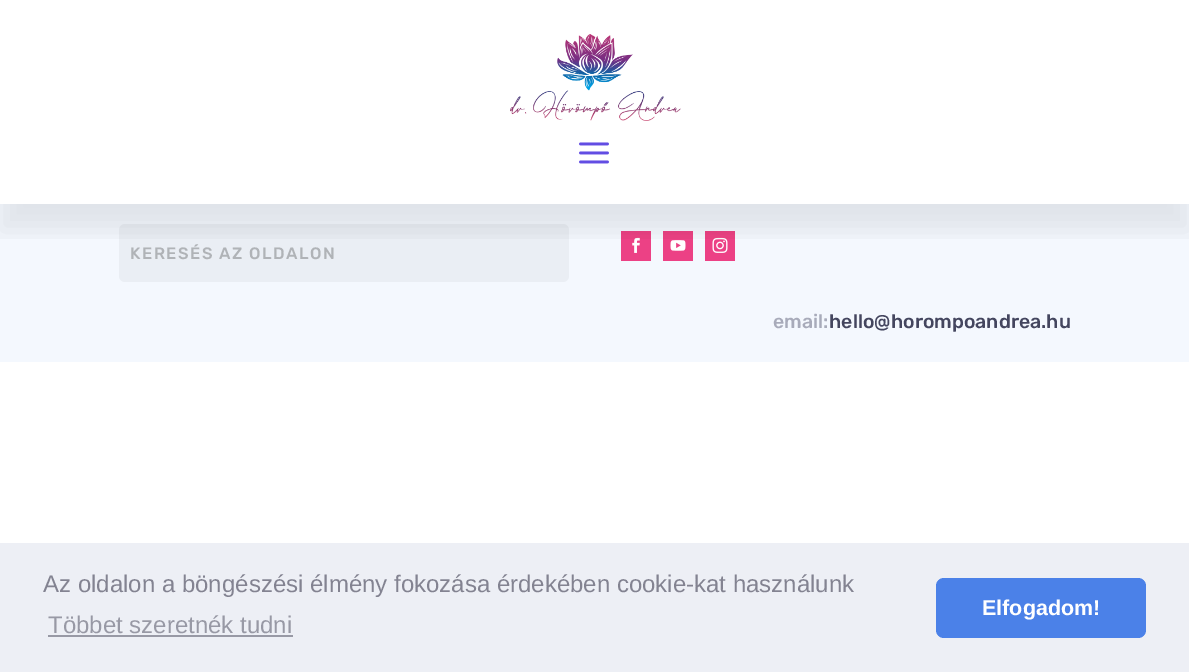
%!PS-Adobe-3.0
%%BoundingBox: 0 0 1189 672
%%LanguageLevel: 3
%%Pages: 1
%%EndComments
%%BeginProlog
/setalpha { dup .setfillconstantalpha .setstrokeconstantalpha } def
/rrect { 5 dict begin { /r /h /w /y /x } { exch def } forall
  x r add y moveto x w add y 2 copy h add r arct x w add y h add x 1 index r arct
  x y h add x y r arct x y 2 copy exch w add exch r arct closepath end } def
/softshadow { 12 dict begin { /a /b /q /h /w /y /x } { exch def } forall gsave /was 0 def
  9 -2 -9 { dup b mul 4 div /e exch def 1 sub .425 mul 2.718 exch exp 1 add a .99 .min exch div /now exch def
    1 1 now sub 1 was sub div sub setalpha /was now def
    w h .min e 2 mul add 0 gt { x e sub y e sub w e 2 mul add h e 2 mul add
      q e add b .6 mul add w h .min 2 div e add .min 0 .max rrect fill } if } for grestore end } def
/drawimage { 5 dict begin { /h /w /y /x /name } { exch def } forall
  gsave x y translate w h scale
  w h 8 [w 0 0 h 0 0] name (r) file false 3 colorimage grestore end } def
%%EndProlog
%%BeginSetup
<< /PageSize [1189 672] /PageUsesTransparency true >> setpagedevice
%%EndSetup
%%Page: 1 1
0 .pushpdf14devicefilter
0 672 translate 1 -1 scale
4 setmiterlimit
1 setgray
0 0 1189 672 rectfill
0.957 0.973 0.996 setrgbcolor
0 204 1189 158 rectfill
0.918 0.933 0.957 setrgbcolor
119 224 450 58 6 rrect fill
0.925 0.255 0.522 setrgbcolor
621 231 30 30 rectfill
(images/3.raw) 632 237 8 16 drawimage
663 231 30 30 rectfill
(images/4.raw) 670 240 16 11 drawimage
705 231 30 30 rectfill
(images/5.raw) 712 237 16 16 drawimage
gsave
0 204 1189 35 rectclip
0 setgray
0 27 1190 204 0 13.5 0.07 softshadow
grestore
(images/1.raw) 510 34 171 87 drawimage
(images/2.raw) 579 142 30 22 drawimage
0.929 0.937 0.961 setrgbcolor
0 543 1189 129 rectfill
0.596 0.6 0.647 setrgbcolor
48 635 245 2 rectfill
0.294 0.506 0.91 setrgbcolor
936 578 210 60 8 rrect fill
/Rubik-Medium [16.5 0 0 -16.5 0 0] selectfont
0.69 0.702 0.718 setrgbcolor
130 259 moveto 1.5 0 (KERESÉS AZ OLDALON) ashow
/Rubik-Medium [19.5 0 0 -19.5 0 0] selectfont
0.659 0.671 0.729 setrgbcolor
773 328 moveto (email:) show
0.267 0.275 0.373 setrgbcolor
829 328 moveto (hello@horompoandrea.hu) show
/LiberationSans-Regular [24 0 0 -24 0 0] selectfont
0.514 0.514 0.569 setrgbcolor
43 592 moveto (Az oldalon a böngészési élmény fokozása érdekében cookie-kat használunk) show
0.596 0.6 0.647 setrgbcolor
48 633 moveto (Többet szeretnék tudni) show
/LiberationSans-Bold [21.5 0 0 -21.5 0 0] selectfont
1 setgray
982 615 moveto (Elfogadom!) show
.poppdf14devicefilter showpage
%%EOF
